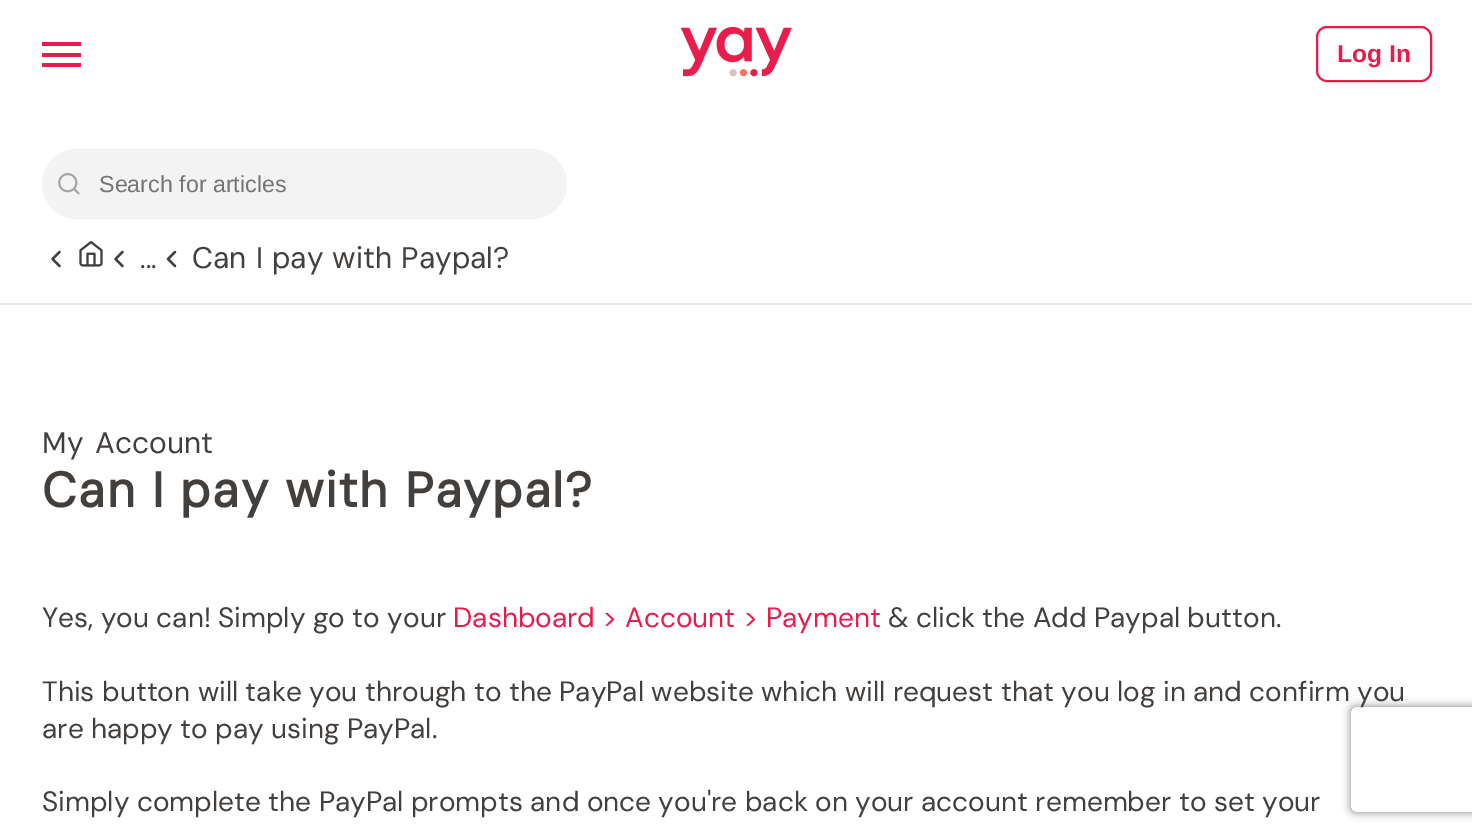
%!PS-Adobe-3.0
%%BoundingBox: 0 0 1472 836
%%LanguageLevel: 3
%%Pages: 1
%%EndComments
%%BeginProlog
/setalpha { dup .setfillconstantalpha .setstrokeconstantalpha } def
/rrect { 5 dict begin { /r /h /w /y /x } { exch def } forall
  x r add y moveto x w add y 2 copy h add r arct x w add y h add x 1 index r arct
  x y h add x y r arct x y 2 copy exch w add exch r arct closepath end } def
/softshadow { 12 dict begin { /a /b /q /h /w /y /x } { exch def } forall gsave /was 0 def
  9 -2 -9 { dup b mul 4 div /e exch def 1 sub .425 mul 2.718 exch exp 1 add a .99 .min exch div /now exch def
    1 1 now sub 1 was sub div sub setalpha /was now def
    w h .min e 2 mul add 0 gt { x e sub y e sub w e 2 mul add h e 2 mul add
      q e add b .6 mul add w h .min 2 div e add .min 0 .max rrect fill } if } for grestore end } def
/drawimage { 5 dict begin { /h /w /y /x /name } { exch def } forall
  gsave x y translate w h scale
  w h 8 [w 0 0 h 0 0] name (r) file false 3 colorimage grestore end } def
%%EndProlog
%%BeginSetup
<< /PageSize [1472 836] /PageUsesTransparency true >> setpagedevice
%%EndSetup
%%Page: 1 1
0 .pushpdf14devicefilter
0 836 translate 1 -1 scale
4 setmiterlimit
1 setgray
0 0 1472 836 rectfill
0.918 0.106 0.294 setrgbcolor
42 42 39 4 rectfill
42 53 39 4 rectfill
42 63 39 4 rectfill
(images/1.raw) 681 26 111 51 drawimage
2 setlinewidth
1317 27 114 54 10 rrect stroke
0.914 0.91 0.906 setrgbcolor
0 303 1472 2 rectfill
0.957 0.953 0.953 setrgbcolor
42 149 525 70 35 rrect fill
(images/2.raw) 58 173 22 22 drawimage
0.259 0.247 0.239 setrgbcolor
2.3 setlinewidth
1 setlinecap
1 setlinejoin
newpath 59.5 266 moveto 52.5 259 lineto 59.5 252 lineto stroke
(images/3.raw) 79 241 24 26 drawimage
newpath 122.5 266 moveto 115.5 259 lineto 122.5 252 lineto stroke
newpath 175 266 moveto 168 259 lineto 175 252 lineto stroke
gsave
newpath 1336 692 moveto 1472 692 lineto 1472 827 lineto 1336 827 lineto closepath 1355 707 moveto 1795 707 lineto 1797 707 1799 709 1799 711 curveto 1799 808 lineto 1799 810 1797 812 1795 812 curveto 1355 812 lineto 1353 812 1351 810 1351 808 curveto 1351 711 lineto 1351 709 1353 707 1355 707 curveto closepath eoclip newpath
0.502 setgray
1351 707 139 105 4 4.5 1 softshadow
grestore
/LiberationSans-Bold [24.5 0 0 -24.5 0 0] selectfont
0.918 0.106 0.294 setrgbcolor
1337 62 moveto (Log In) show
/LiberationSans-Regular [23.25 0 0 -23.25 0 0] selectfont
0.459 setgray
99 192 moveto (Search for articles) show
/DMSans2-Regular [28 0 0 -28 0 0] selectfont
0.259 0.247 0.239 setrgbcolor
140 268 moveto (...) show
/DMSans-Regular [29.75 0 0 -29.75 0 0] selectfont
192 268 moveto 1 0 32 (Can I pay with Paypal?) widthshow
42 453 moveto 4 0 32 (My Account) widthshow
/DMSans-Bold [49 0 0 -49 0 0] selectfont
42 507 moveto 0.5 0 32 1.5 0 (Can I pay with Paypal?) awidthshow
/DMSans2-Regular [28 0 0 -28 0 0] selectfont
42 627 moveto (Yes, you can! Simply go to your) show
0.918 0.106 0.294 setrgbcolor
453 627 moveto (Dashboard > Account > Payment) show
0.259 0.247 0.239 setrgbcolor
888 627 moveto (& click the Add Paypal button.) show
42 701 moveto (This button will take you through to the PayPal website which will request that you log in and confirm you) show
42 738 moveto (are happy to pay using PayPal.) show
42 811 moveto (Simply complete the PayPal prompts and once you're back on your account remember to set your) show
.poppdf14devicefilter showpage
%%EOF
